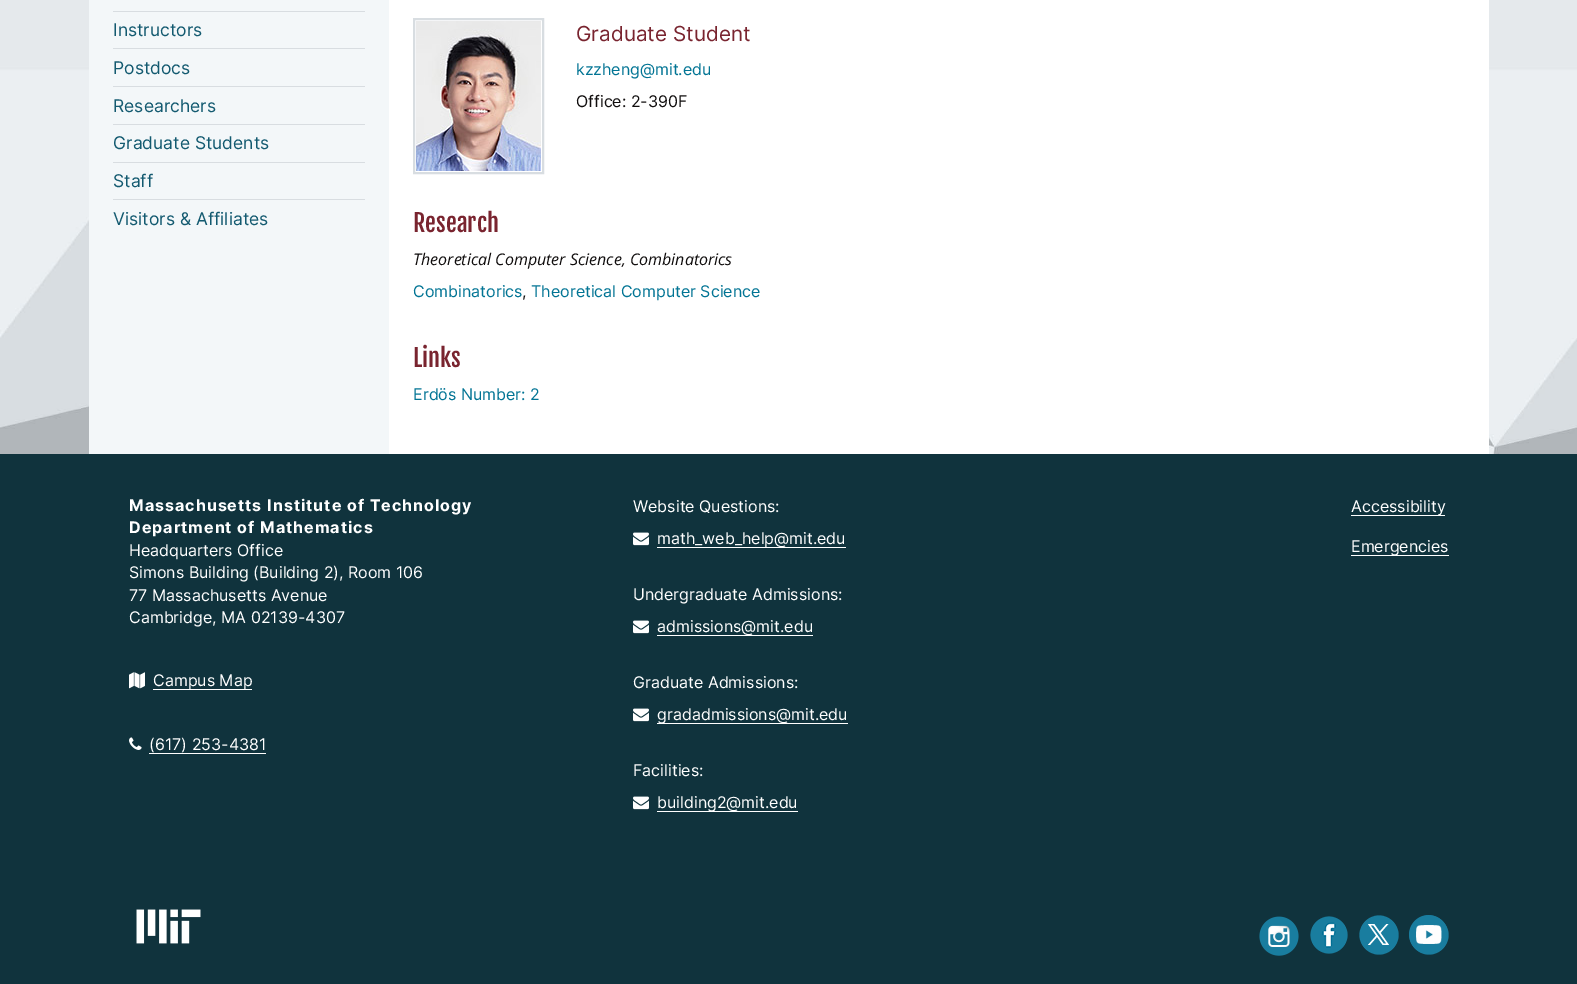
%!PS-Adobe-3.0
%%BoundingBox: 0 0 1577 984
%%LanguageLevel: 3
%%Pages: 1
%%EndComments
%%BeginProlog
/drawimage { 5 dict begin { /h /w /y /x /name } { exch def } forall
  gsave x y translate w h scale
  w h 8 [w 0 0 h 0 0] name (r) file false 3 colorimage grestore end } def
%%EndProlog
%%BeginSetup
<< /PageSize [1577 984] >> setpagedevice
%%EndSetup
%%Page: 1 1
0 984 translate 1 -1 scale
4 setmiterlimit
1 setgray
0 0 1577 984 rectfill
(images/1.raw) 0 0 1577 454 drawimage
0.953 0.969 0.976 setrgbcolor
89 0 300 454 rectfill
0.847 0.867 0.882 setrgbcolor
113 11 252 1 rectfill
113 48 252 1 rectfill
113 86 252 1 rectfill
113 124 252 1 rectfill
113 162 252 1 rectfill
113 199 252 1 rectfill
1 setgray
389 0 1100 454 rectfill
0.847 0.867 0.882 setrgbcolor
2 setlinewidth
414 19 129 154 rectstroke
(images/2.raw) 416 21 125 150 drawimage
0.063 0.2 0.239 setrgbcolor
0 454 1577 530 rectfill
(images/3.raw) 129 672 16 17 drawimage
1 setgray
153 689 99 1 rectfill
(images/4.raw) 129 737 13 13 drawimage
149 753 117 1 rectfill
(images/5.raw) 633 532 16 14 drawimage
657 547 189 1 rectfill
(images/5.raw) 633 620 16 14 drawimage
657 635 156 1 rectfill
(images/5.raw) 633 708 16 14 drawimage
657 723 191 1 rectfill
(images/5.raw) 633 796 16 14 drawimage
657 811 141 1 rectfill
1351 515 94 1 rectfill
1351 555 98 1 rectfill
(images/6.raw) 136 909 65 35 drawimage
(images/7.raw) 1259 916 40 40 drawimage
(images/8.raw) 1310 916 38 38 drawimage
(images/9.raw) 1359 915 40 40 drawimage
(images/10.raw) 1409 915 40 40 drawimage
/Inter-Regular [17.5 0 0 -17.5 0 0] selectfont
0.075 0.353 0.439 setrgbcolor
113 36 moveto (Instructors) show
113 74 moveto (Postdocs) show
113 112 moveto (Researchers) show
113 149 moveto (Graduate Students) show
113 187 moveto (Staff) show
113 225 moveto (Visitors & Affiliates) show
/Inter-Regular [20.75 0 0 -20.75 0 0] selectfont
0.475 0.141 0.184 setrgbcolor
576 41 moveto (Graduate Student) show
/Inter-Regular [16 0 0 -16 0 0] selectfont
0.004 0.455 0.58 setrgbcolor
576 75 moveto (kzzheng@mit.edu) show
0.067 0.055 0.055 setrgbcolor
576 107 moveto (Office: 2-390F) show
/FjallaOne-Regular [24 0 0 -24 0 0] selectfont
0.475 0.141 0.184 setrgbcolor
413 232 moveto (Research) show
/OpenSans-Italic [16 0 0 -16 0 0] selectfont
0.067 0.055 0.055 setrgbcolor
413 265 moveto (Theoretical Computer Science, Combinatorics) show
/Inter-Regular [16 0 0 -16 0 0] selectfont
0.004 0.455 0.58 setrgbcolor
413 297 moveto (Combinatorics) show
0.067 0.055 0.055 setrgbcolor
522 297 moveto (,) show
0.004 0.455 0.58 setrgbcolor
531 297 moveto (Theoretical Computer Science) show
/FjallaOne-Regular [24 0 0 -24 0 0] selectfont
0.475 0.141 0.184 setrgbcolor
413 367 moveto (Links) show
/Inter-Regular [16 0 0 -16 0 0] selectfont
0.004 0.455 0.58 setrgbcolor
413 400 moveto (Erdös Number: 2) show
/Inter-Bold [16 0 0 -16 0 0] selectfont
1 setgray
129 511 moveto 1 0 (Massachusetts Institute of Technology) ashow
129 533 moveto 1 0 (Department of Mathematics) ashow
/Inter-Regular [16 0 0 -16 0 0] selectfont
129 556 moveto (Headquarters Office) show
129 578 moveto (Simons Building \(Building 2\), Room 106) show
129 601 moveto (77 Massachusetts Avenue) show
129 623 moveto (Cambridge, MA 02139-4307) show
153 686 moveto (Campus Map) show
149 750 moveto (\(617\) 253-4381) show
633 512 moveto (Website Questions:) show
657 544 moveto (math_web_help@mit.edu) show
633 600 moveto (Undergraduate Admissions:) show
657 632 moveto (admissions@mit.edu) show
633 688 moveto (Graduate Admissions:) show
657 720 moveto (gradadmissions@mit.edu) show
633 776 moveto (Facilities:) show
657 808 moveto (building2@mit.edu) show
1351 512 moveto (Accessibility) show
1351 552 moveto (Emergencies) show
showpage
%%EOF
